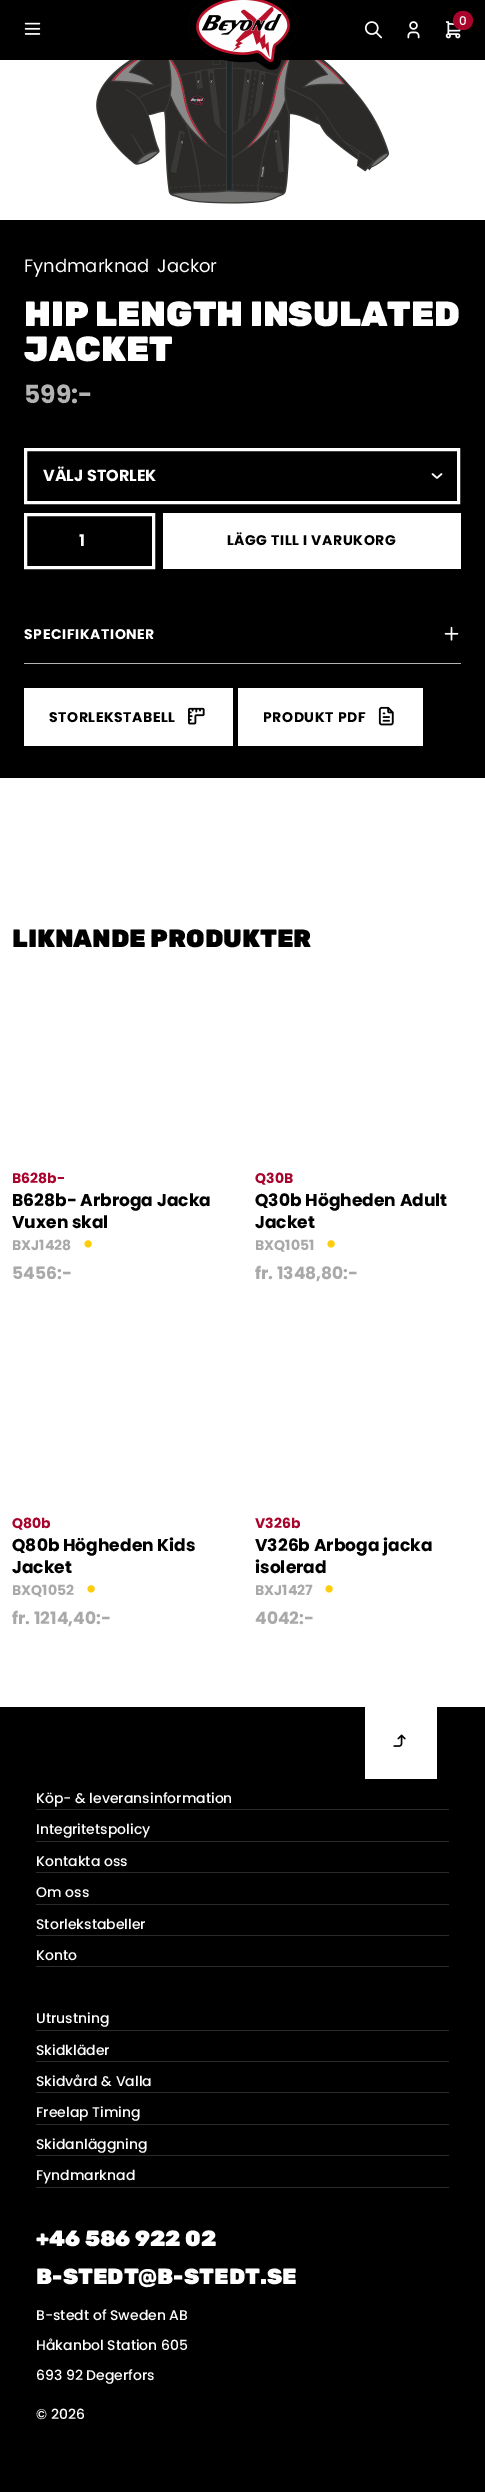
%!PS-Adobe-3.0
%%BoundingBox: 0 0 485 2492
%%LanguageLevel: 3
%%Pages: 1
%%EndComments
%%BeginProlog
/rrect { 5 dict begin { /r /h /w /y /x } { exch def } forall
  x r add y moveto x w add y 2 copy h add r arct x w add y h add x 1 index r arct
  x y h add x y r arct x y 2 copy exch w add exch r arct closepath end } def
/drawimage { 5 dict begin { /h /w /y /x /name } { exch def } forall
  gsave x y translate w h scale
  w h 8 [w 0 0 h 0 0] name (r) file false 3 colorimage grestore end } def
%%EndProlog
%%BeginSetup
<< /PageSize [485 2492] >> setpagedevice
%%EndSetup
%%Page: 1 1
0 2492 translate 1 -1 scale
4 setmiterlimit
1 setgray
0 0 485 2492 rectfill
0 setgray
0 0 485 60 rectfill
(images/6.raw) 96 60 293 144 drawimage
(images/1.raw) 188 0 109 70 drawimage
(images/2.raw) 364 21 19 18 drawimage
(images/3.raw) 407 21 13 18 drawimage
(images/4.raw) 445 21 16 18 drawimage
0.659 0.016 0.173 setrgbcolor
453 11 20 19 9.5 rrect fill
(images/5.raw) 24 22 17 13 drawimage
0 setgray
0 220 485 558 rectfill
1 setgray
1.5 setlinewidth
1 setlinecap
1 setlinejoin
newpath 432.5 474 moveto 437 478 lineto 441.5 474 lineto stroke
3 setlinewidth
0 setlinecap
0 setlinejoin
25.5 449.5 433 53 rectstroke
25.5 514.5 128 53 rectstroke
163 513 298 56 rectfill
0.702 setgray
24 663 437 1 rectfill
(images/7.raw) 444 626 15 15 drawimage
1 setgray
24 688 209 58 rectfill
(images/8.raw) 188 707 17 18 drawimage
238 688 185 58 rectfill
(images/9.raw) 378 706 16 20 drawimage
(images/10.raw) 84 1240 8 8 drawimage
(images/10.raw) 327 1240 8 8 drawimage
(images/10.raw) 87 1585 8 8 drawimage
(images/10.raw) 325 1585 8 8 drawimage
0 setgray
0 1707 485 785 rectfill
1 setgray
365 1707 72 72 rectfill
(images/11.raw) 393 1734 13 13 drawimage
0.169 setgray
36 1809 413 1 rectfill
36 1841 413 1 rectfill
36 1872 413 1 rectfill
36 1904 413 1 rectfill
36 1935 413 1 rectfill
36 1966 413 1 rectfill
36 2030 413 1 rectfill
36 2061 413 1 rectfill
36 2092 413 1 rectfill
36 2124 413 1 rectfill
36 2155 413 1 rectfill
36 2187 413 1 rectfill
/Poppins-Medium [12 0 0 -12 0 0] selectfont
1 setgray
459 25 moveto (0) show
/Poppins-Regular [18 0 0 -18 0 0] selectfont
24 272 moveto (Fyndmarknad) show
157 272 moveto (Jackor) show
/Rubik-Light [35 0 0 -35 0 0] selectfont
24 326 moveto (HIP LENGTH INSULATED) show
24 361 moveto (JACKET) show
/Poppins-Bold [25 0 0 -25 0 0] selectfont
0.702 setgray
24 403 moveto (599:-) show
/Poppins-Bold [16 0 0 -16 0 0] selectfont
1 setgray
43 481 moveto (VÄLJ STORLEK) show
79 546 moveto (1) show
/Poppins-Bold [14 0 0 -14 0 0] selectfont
0 setgray
227 545 moveto 0.6 0 (LÄGG TILL I VARUKORG) ashow
1 setgray
24 639 moveto 0.6 0 (SPECIFIKATIONER) ashow
0 setgray
49 722 moveto 0.6 0 (STORLEKSTABELL) ashow
263 722 moveto 0.6 0 (PRODUKT PDF) ashow
/Rubik-Light [25 0 0 -25 0 0] selectfont
12 947 moveto (LIKNANDE PRODUKTER) show
/Poppins-Bold [14 0 0 -14 0 0] selectfont
0.659 0.016 0.173 setrgbcolor
12 1183 moveto (B628b-) show
/Poppins-Bold [17.1 0 0 -17.1 0 0] selectfont
0 setgray
12 1206 moveto (B628b- Arbroga Jacka) show
12 1228 moveto (Vuxen skal) show
/Poppins-Bold [14 0 0 -14 0 0] selectfont
0.663 setgray
12 1250 moveto (BXJ1428) show
/Poppins-Bold [17.1 0 0 -17.1 0 0] selectfont
12 1279 moveto (5456:-) show
/Poppins-Bold [14 0 0 -14 0 0] selectfont
0.659 0.016 0.173 setrgbcolor
255 1183 moveto (Q30B) show
/Poppins-Bold [17.1 0 0 -17.1 0 0] selectfont
0 setgray
255 1206 moveto (Q30b Högheden Adult) show
255 1228 moveto (Jacket) show
/Poppins-Bold [14 0 0 -14 0 0] selectfont
0.663 setgray
255 1250 moveto (BXQ1051) show
/Poppins-Bold [17.1 0 0 -17.1 0 0] selectfont
255 1279 moveto (fr. 1348,80:-) show
/Poppins-Bold [14 0 0 -14 0 0] selectfont
0.659 0.016 0.173 setrgbcolor
12 1528 moveto (Q80b) show
/Poppins-Bold [17.1 0 0 -17.1 0 0] selectfont
0 setgray
12 1551 moveto (Q80b Högheden Kids) show
12 1573 moveto (Jacket) show
/Poppins-Bold [14 0 0 -14 0 0] selectfont
0.663 setgray
12 1595 moveto (BXQ1052) show
/Poppins-Bold [17.1 0 0 -17.1 0 0] selectfont
12 1624 moveto (fr. 1214,40:-) show
/Poppins-Bold [14 0 0 -14 0 0] selectfont
0.659 0.016 0.173 setrgbcolor
255 1528 moveto (V326b) show
/Poppins-Bold [17.1 0 0 -17.1 0 0] selectfont
0 setgray
255 1551 moveto (V326b Arboga jacka) show
255 1573 moveto (isolerad) show
/Poppins-Bold [14 0 0 -14 0 0] selectfont
0.663 setgray
255 1595 moveto (BXJ1427) show
/Poppins-Bold [17.1 0 0 -17.1 0 0] selectfont
255 1624 moveto (4042:-) show
/Poppins-Medium [14 0 0 -14 0 0] selectfont
1 setgray
36 1803 moveto (Köp- & leveransinformation) show
36 1834 moveto (Integritetspolicy) show
36 1866 moveto (Kontakta oss) show
36 1897 moveto (Om oss) show
36 1929 moveto (Storlekstabeller) show
36 1960 moveto (Konto) show
36 2023 moveto (Utrustning) show
36 2055 moveto (Skidkläder) show
36 2086 moveto (Skidvård & Valla) show
36 2117 moveto (Freelap Timing) show
36 2149 moveto (Skidanläggning) show
36 2180 moveto (Fyndmarknad) show
/Rubik-Light [22 0 0 -22 0 0] selectfont
36 2246 moveto (+46 586 922 02) show
36 2284 moveto (B-STEDT@B-STEDT.SE) show
/Poppins-Medium [14 0 0 -14 0 0] selectfont
36 2320 moveto (B-stedt of Sweden AB) show
36 2350 moveto (Håkanbol Station 605) show
36 2380 moveto (693 92 Degerfors) show
36 2419 moveto (© 2026) show
showpage
%%EOF
